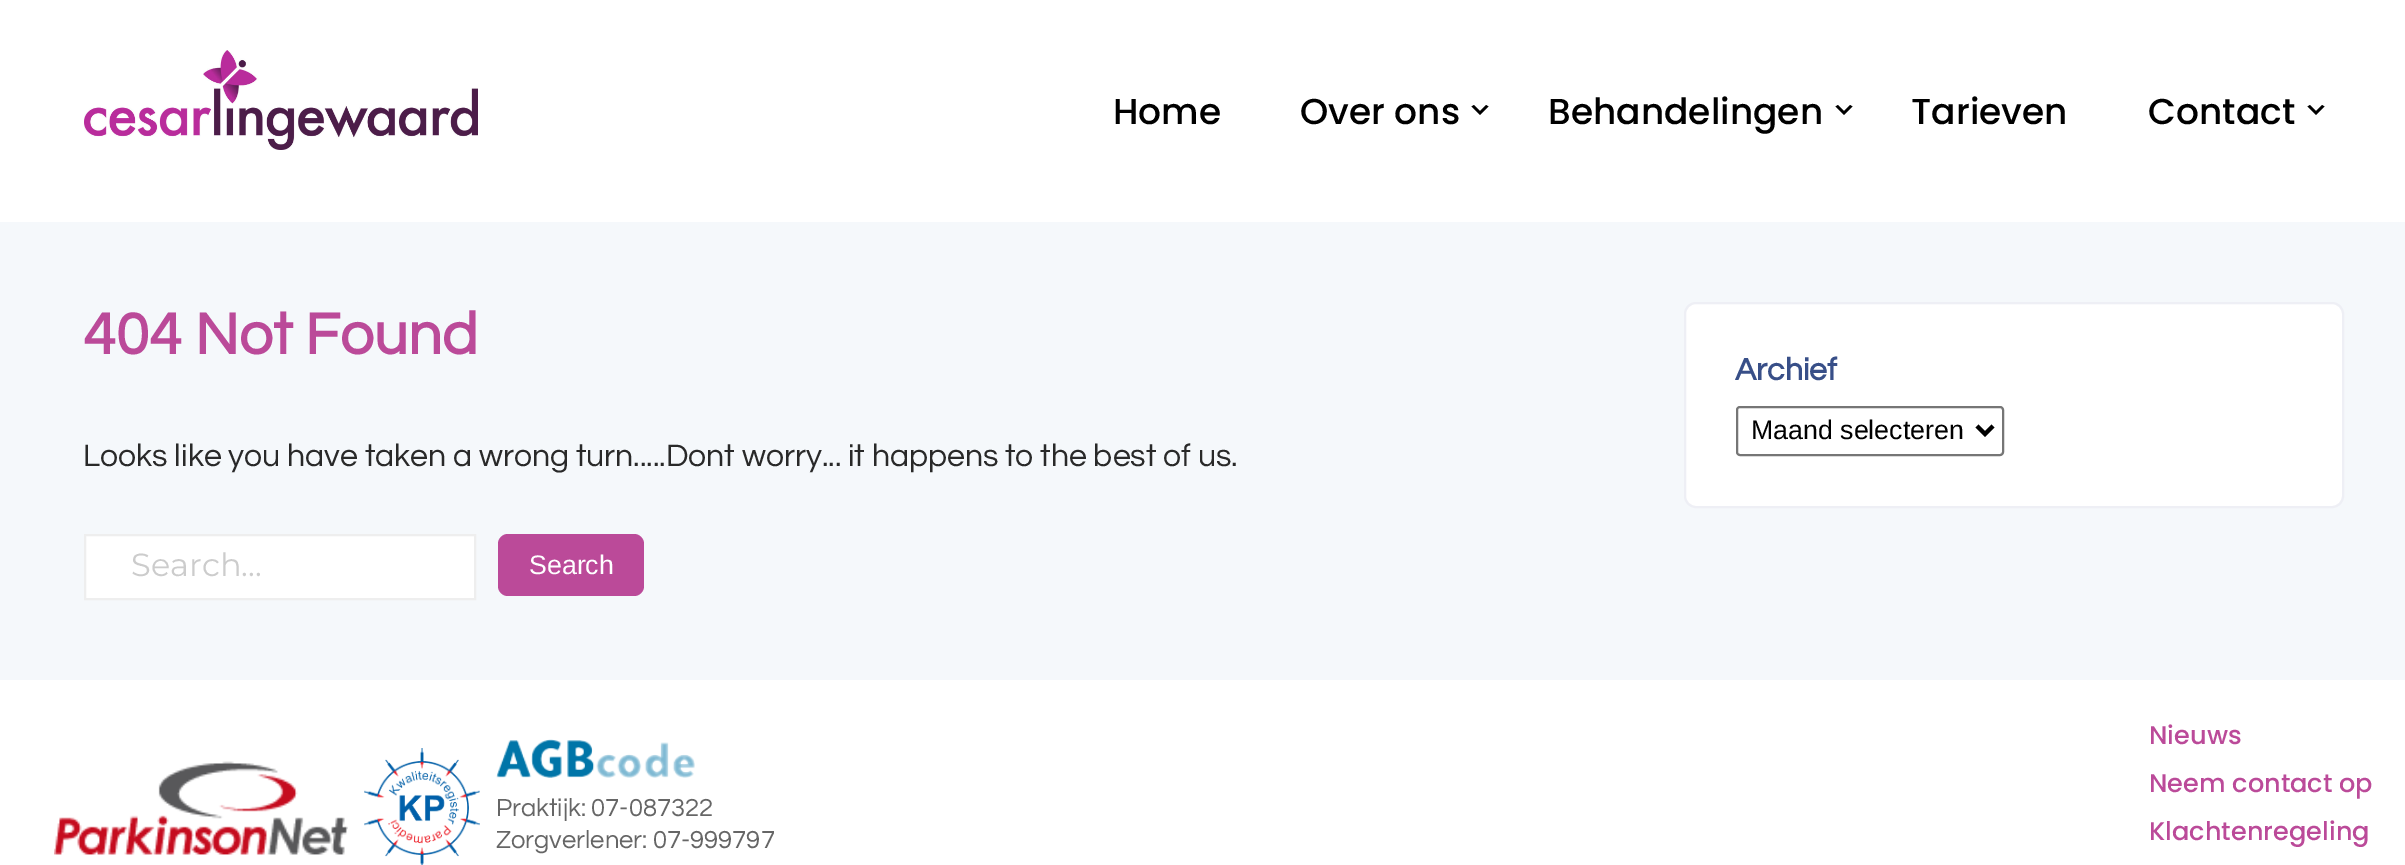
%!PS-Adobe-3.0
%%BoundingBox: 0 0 2405 865
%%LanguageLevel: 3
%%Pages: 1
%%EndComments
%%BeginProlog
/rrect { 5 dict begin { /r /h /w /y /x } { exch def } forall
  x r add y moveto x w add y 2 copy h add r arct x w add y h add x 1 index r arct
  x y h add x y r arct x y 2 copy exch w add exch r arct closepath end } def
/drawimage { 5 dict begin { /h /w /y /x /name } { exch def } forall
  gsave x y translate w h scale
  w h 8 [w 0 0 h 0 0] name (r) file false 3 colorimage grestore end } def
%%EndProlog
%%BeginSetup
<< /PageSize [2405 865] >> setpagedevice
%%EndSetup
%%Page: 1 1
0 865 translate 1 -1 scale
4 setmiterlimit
0.961 0.973 0.984 setrgbcolor
0 0 2405 865 rectfill
1 setgray
0 0 2405 222 rectfill
(images/1.raw) 84 50 394 100 drawimage
0 setgray
newpath 1474 105 moveto 1480 111 lineto 1486 105 lineto 1488.5 106.5 lineto 1480 115 lineto 1471.5 106.5 lineto closepath fill
newpath 1838 105 moveto 1844 111 lineto 1850 105 lineto 1852.5 106.5 lineto 1844 115 lineto 1835.5 106.5 lineto closepath fill
newpath 2310 105 moveto 2316 111 lineto 2322 105 lineto 2324.5 106.5 lineto 2316 115 lineto 2307.5 106.5 lineto closepath fill
1 setgray
newpath 85 535 moveto 475 535 lineto 475 599 lineto 85 599 lineto closepath gsave fill grestore
0.933 setgray
2 setlinewidth
stroke
0.733 0.29 0.6 setrgbcolor
498 534 146 62 10 rrect fill
1 setgray
1685 303 658 204 11 rrect gsave fill grestore
0.933 0.937 0.961 setrgbcolor
stroke
0.463 setgray
1737 407 266 48 3 rrect stroke
0 setgray
4 setlinewidth
newpath 1977 426 moveto 1985 434 lineto 1993 426 lineto stroke
1 setgray
0 680 2405 185 rectfill
(images/2.raw) 54 761 294 94 drawimage
(images/3.raw) 364 748 116 117 drawimage
(images/4.raw) 496 739 199 39 drawimage
/Poppins-Medium [36 0 0 -36 0 0] selectfont
0 setgray
1113 124 moveto (Home) show
1300 124 moveto (Over ons) show
1548 124 moveto (Behandelingen) show
1911 124 moveto (Tarieven) show
2148 124 moveto (Contact) show
/Questrial-Bold [60 0 0 -60 0 0] selectfont
0.733 0.29 0.6 setrgbcolor
83 354 moveto (404 Not Found) show
/Questrial-Regular [32 0 0 -32 0 0] selectfont
0.161 setgray
83 466 moveto (Looks like you have taken a wrong turn.....Dont worry... it happens to the best of us.) show
/Montserrat-Regular [32 0 0 -32 0 0] selectfont
0.8 setgray
131 576 moveto (Search...) show
/LiberationSans-Regular [26.75 0 0 -26.75 0 0] selectfont
1 setgray
529 574 moveto (Search) show
/Questrial-Bold [32 0 0 -32 0 0] selectfont
0.22 0.31 0.533 setrgbcolor
1735 380 moveto (Archief) show
/LiberationSans-Regular [26.75 0 0 -26.75 0 0] selectfont
0 setgray
1751 439 moveto (Maand selecteren) show
/Questrial-Regular [25.6 0 0 -25.6 0 0] selectfont
0.4 setgray
496 816 moveto (Praktijk: 07-087322) show
496 848 moveto (Zorgverlener: 07-999797) show
/Poppins-Medium [25.6 0 0 -25.6 0 0] selectfont
0.733 0.29 0.6 setrgbcolor
2149 744 moveto (Nieuws) show
2149 792 moveto (Neem contact op) show
2149 840 moveto (Klachtenregeling) show
showpage
%%EOF
